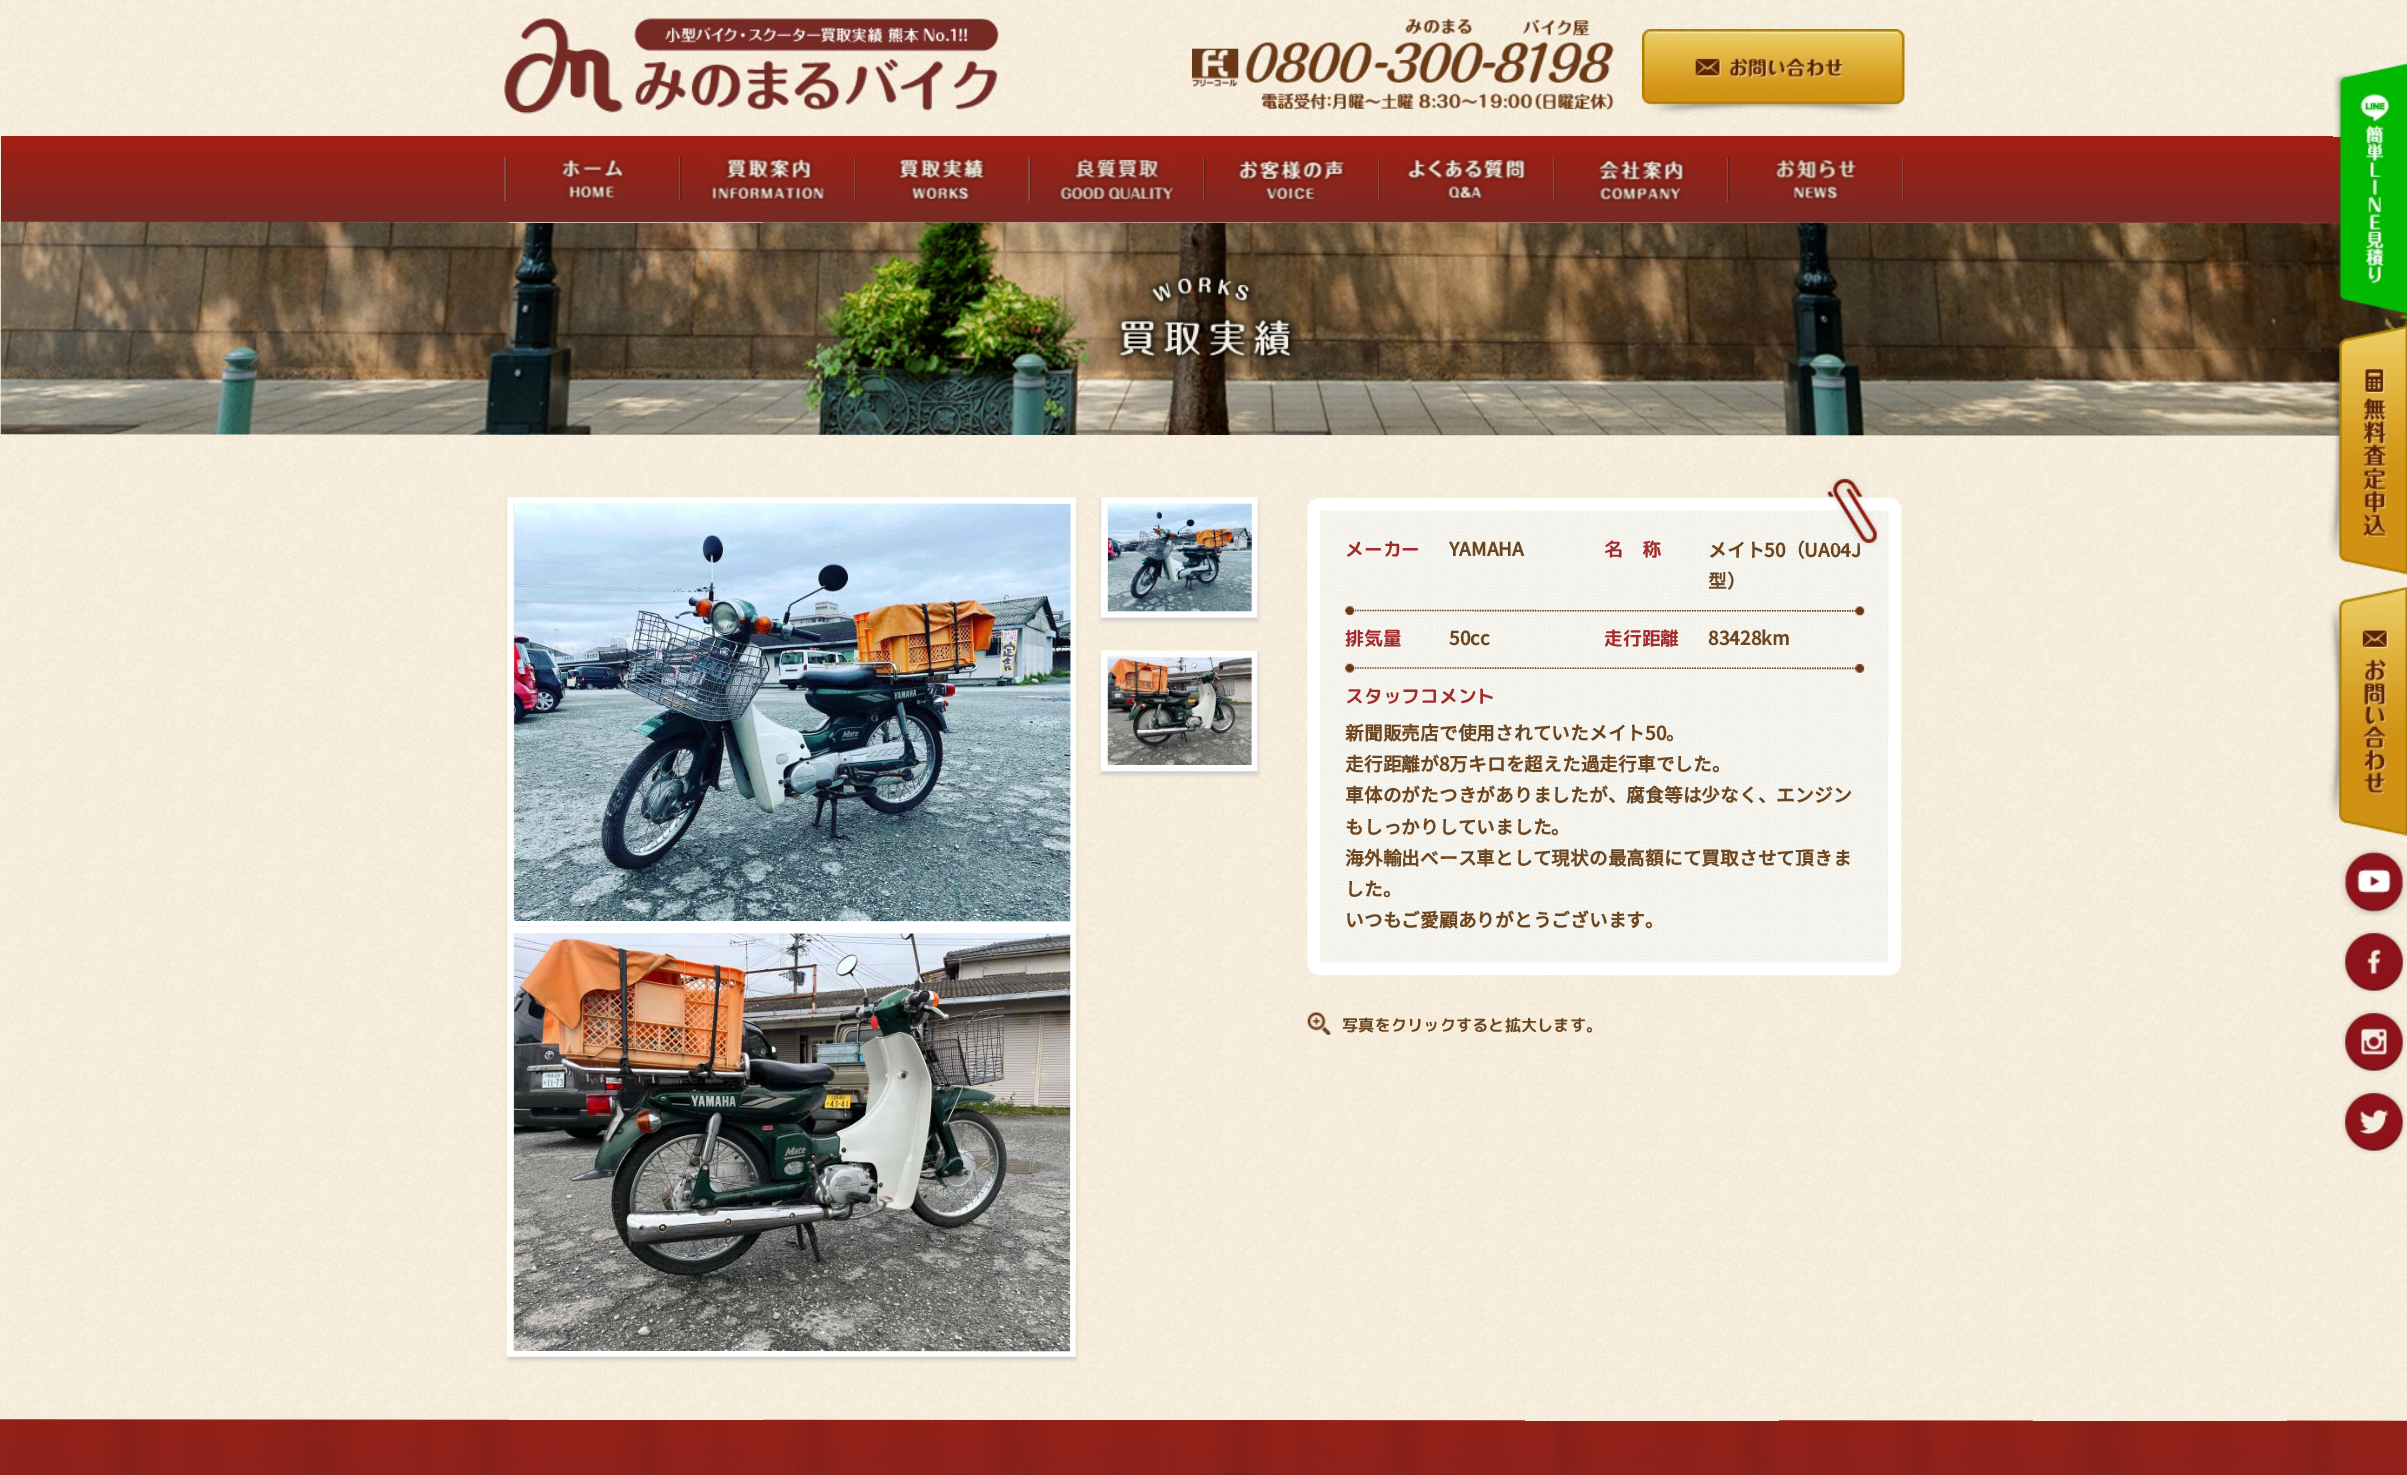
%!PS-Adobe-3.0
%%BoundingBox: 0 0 2407 1475
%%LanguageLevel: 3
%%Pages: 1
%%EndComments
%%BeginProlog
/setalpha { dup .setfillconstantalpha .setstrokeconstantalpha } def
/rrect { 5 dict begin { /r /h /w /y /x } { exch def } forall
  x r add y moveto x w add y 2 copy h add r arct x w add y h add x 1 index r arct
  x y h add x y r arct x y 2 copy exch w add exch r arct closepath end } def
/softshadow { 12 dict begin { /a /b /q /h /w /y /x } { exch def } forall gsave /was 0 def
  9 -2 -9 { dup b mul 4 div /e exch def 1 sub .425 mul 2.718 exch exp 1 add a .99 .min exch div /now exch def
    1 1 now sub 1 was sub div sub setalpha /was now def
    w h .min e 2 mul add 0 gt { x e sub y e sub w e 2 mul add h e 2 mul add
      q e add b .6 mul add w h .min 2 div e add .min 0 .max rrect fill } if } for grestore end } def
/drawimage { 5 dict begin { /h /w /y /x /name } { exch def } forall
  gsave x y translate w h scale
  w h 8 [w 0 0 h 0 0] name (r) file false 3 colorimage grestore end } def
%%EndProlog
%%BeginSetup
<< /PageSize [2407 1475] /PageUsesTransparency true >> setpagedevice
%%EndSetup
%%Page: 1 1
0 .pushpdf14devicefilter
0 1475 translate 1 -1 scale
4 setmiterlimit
1 setgray
0 0 2407 1475 rectfill
(images/1.raw) 0 0 2407 1421 drawimage
(images/2.raw) 504 18 495 96 drawimage
(images/3.raw) 1191 18 423 93 drawimage
(images/4.raw) 1641 29 264 86 drawimage
gsave newpath 1 136 moveto 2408 137 lineto 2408 223 lineto 1 222 lineto closepath clip newpath
<< /ShadingType 2 /ColorSpace /DeviceRGB /Coords [1204 223 1204 136] /Extend [true true] /Function << /FunctionType 2 /Domain [0 1] /C0 [0.463 0.165 0.141] /C1 [0.647 0.118 0.075] /N 1 >> >> shfill grestore
(images/20.raw) 0 221 2407 215 drawimage
(images/5.raw) 2333 63 74 251 drawimage
(images/6.raw) 2328 325 79 250 drawimage
(images/7.raw) 2328 587 79 249 drawimage
(images/8.raw) 2340 848 67 68 drawimage
(images/9.raw) 2342 930 64 64 drawimage
(images/10.raw) 2342 1010 64 64 drawimage
(images/11.raw) 2342 1090 64 64 drawimage
0.573 0.278 0.259 setrgbcolor
504 157 2 44 rectfill
0.416 0.133 0.114 setrgbcolor
506 157 1 43 rectfill
(images/12.raw) 559 157 67 44 drawimage
0.573 0.278 0.259 setrgbcolor
679 157 1 43 rectfill
0.416 0.133 0.114 setrgbcolor
680 157 2 44 rectfill
(images/13.raw) 709 155 118 47 drawimage
0.573 0.278 0.259 setrgbcolor
854 157 1 44 rectfill
0.416 0.133 0.114 setrgbcolor
855 157 1 44 rectfill
(images/14.raw) 897 155 89 48 drawimage
0.573 0.278 0.259 setrgbcolor
1028 157 2 44 rectfill
0.416 0.133 0.114 setrgbcolor
1030 157 1 44 rectfill
(images/15.raw) 1057 155 119 48 drawimage
0.573 0.278 0.259 setrgbcolor
newpath 1203 157 moveto 1204 158 lineto 1204 201 lineto 1203 201 lineto closepath fill
0.416 0.133 0.114 setrgbcolor
1204 158 2 43 rectfill
(images/16.raw) 1236 157 110 46 drawimage
0.573 0.278 0.259 setrgbcolor
1378 158 1 43 rectfill
0.416 0.133 0.114 setrgbcolor
1379 157 1 44 rectfill
(images/17.raw) 1405 156 123 46 drawimage
0.573 0.278 0.259 setrgbcolor
1553 157 1 44 rectfill
0.416 0.133 0.114 setrgbcolor
1554 158 1 43 rectfill
(images/18.raw) 1597 157 90 46 drawimage
0.573 0.278 0.259 setrgbcolor
1727 158 1 44 rectfill
0.416 0.133 0.114 setrgbcolor
1728 157 2 44 rectfill
(images/19.raw) 1773 156 85 46 drawimage
0.573 0.278 0.259 setrgbcolor
1902 157 1 44 rectfill
0.416 0.133 0.114 setrgbcolor
1903 158 1 44 rectfill
(images/21.raw) 1114 271 182 92 drawimage
0.8 setgray
508 501 568 430 0 2 1 softshadow
1 setgray
6.3 setlinewidth
newpath 510.5 500.5 moveto 1073 500.5 lineto 1073 924 lineto 510.5 923.5 lineto closepath stroke
(images/22.raw) 514 503 557 419 drawimage
0.8 setgray
508 931 568 429 0 2 1 softshadow
1 setgray
newpath 510.5 930 moveto 1073 930 lineto 1072.5 1353.5 lineto 510 1353.5 lineto closepath stroke
(images/23.raw) 513 933 558 419 drawimage
0.8 setgray
1101 501 157 120 0 2 1 softshadow
1 setgray
newpath 1104.5 500.5 moveto 1254.5 500.5 lineto 1254 614.5 lineto 1104 614.5 lineto closepath stroke
(images/24.raw) 1107 503 145 109 drawimage
0.8 setgray
1101 654 157 121 0 2 1 softshadow
1 setgray
newpath 1104 653.5 moveto 1254 654 lineto 1254 768 lineto 1104 768 lineto closepath stroke
(images/25.raw) 1107 657 145 108 drawimage
(images/27.raw) 1308 497 594 478 drawimage
12.5 setlinewidth
newpath 1320 504 moveto 1888.5 504 lineto 1892 504 1895 507 1895 510.5 curveto 1894.5 962.5 lineto 1894.5 966 1892 969 1888.5 969 curveto 1319.5 968.5 lineto 1316 968.5 1313.5 966 1313.5 962.5 curveto 1313.5 510 lineto 1313.5 506.5 1316.5 504 1320 504 curveto closepath stroke
0.42 0.231 0.11 setrgbcolor
1.3 setlinewidth
[1.25 1.25] 0 setdash
newpath 1345 610.5 moveto 1863.5 611 lineto stroke
(images/28.raw) 1345 606 10 9 drawimage
(images/29.raw) 1855 606 10 10 drawimage
newpath 1345 668 moveto 1863.5 668.5 lineto stroke
(images/30.raw) 1345 663 10 10 drawimage
(images/31.raw) 1855 664 10 9 drawimage
(images/32.raw) 1307 1012 24 23 drawimage
(images/33.raw) 0 1419 2407 56 drawimage
(images/34.raw) 945 1472 511 3 drawimage
/RoundedMplus1cBold-Bold [18.75 0 0 -18.75 0 0] selectfont
0.639 0.169 0.169 setrgbcolor
1345 556 moveto (メーカー) show
/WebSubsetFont-Bold [18.75 0 0 -18.75 0 0] selectfont
0.424 0.275 0.125 setrgbcolor
1449 556 moveto (YAMAHA) show
/RoundedMplus1cBold-Bold [18.75 0 0 -18.75 0 0] selectfont
0.639 0.169 0.169 setrgbcolor
1604 556 moveto (名　称) show
/WebSubsetFont-Bold [18.75 0 0 -18.75 0 0] selectfont
0.424 0.275 0.125 setrgbcolor
1708 557 moveto (メイト50（UA04J) show
(images/26.raw) 1826 476 54 70 drawimage
1708 588 moveto (型）) show
/RoundedMplus1cBold-Bold [18.75 0 0 -18.75 0 0] selectfont
0.639 0.169 0.169 setrgbcolor
1345 645 moveto (排気量) show
/WebSubsetFont-Bold [18.75 0 0 -18.75 0 0] selectfont
0.424 0.275 0.125 setrgbcolor
1449 645 moveto (50cc) show
/RoundedMplus1cBold-Bold [18.75 0 0 -18.75 0 0] selectfont
0.639 0.169 0.169 setrgbcolor
1604 645 moveto (走行距離) show
/WebSubsetFont-Bold [18.75 0 0 -18.75 0 0] selectfont
0.424 0.275 0.125 setrgbcolor
1708 645 moveto (83428km) show
/RoundedMplus1cBold-Bold [18.75 0 0 -18.75 0 0] selectfont
0.639 0.169 0.169 setrgbcolor
1345 703 moveto (スタッフコメント) show
/WebSubsetFont-Bold [18.75 0 0 -18.75 0 0] selectfont
0.424 0.275 0.125 setrgbcolor
1345 740 moveto (新聞販売店で使用されていたメイト50。) show
1345 771 moveto (走行距離が8万キロを超えた過走行車でした。) show
1345 802 moveto (車体のがたつきがありましたが、腐食等は少なく、エンジン) show
1345 834 moveto (もしっかりしていました。) show
1345 865 moveto (海外輸出ベース車として現状の最高額にて買取させて頂きま) show
1345 896 moveto (した。) show
1345 927 moveto (いつもご愛顧ありがとうございます。) show
/RoundedMplus1cBold-Bold [16.25 0 0 -16.25 0 0] selectfont
1342 1031 moveto (写真をクリックすると拡大します。) show
.poppdf14devicefilter showpage
%%EOF
